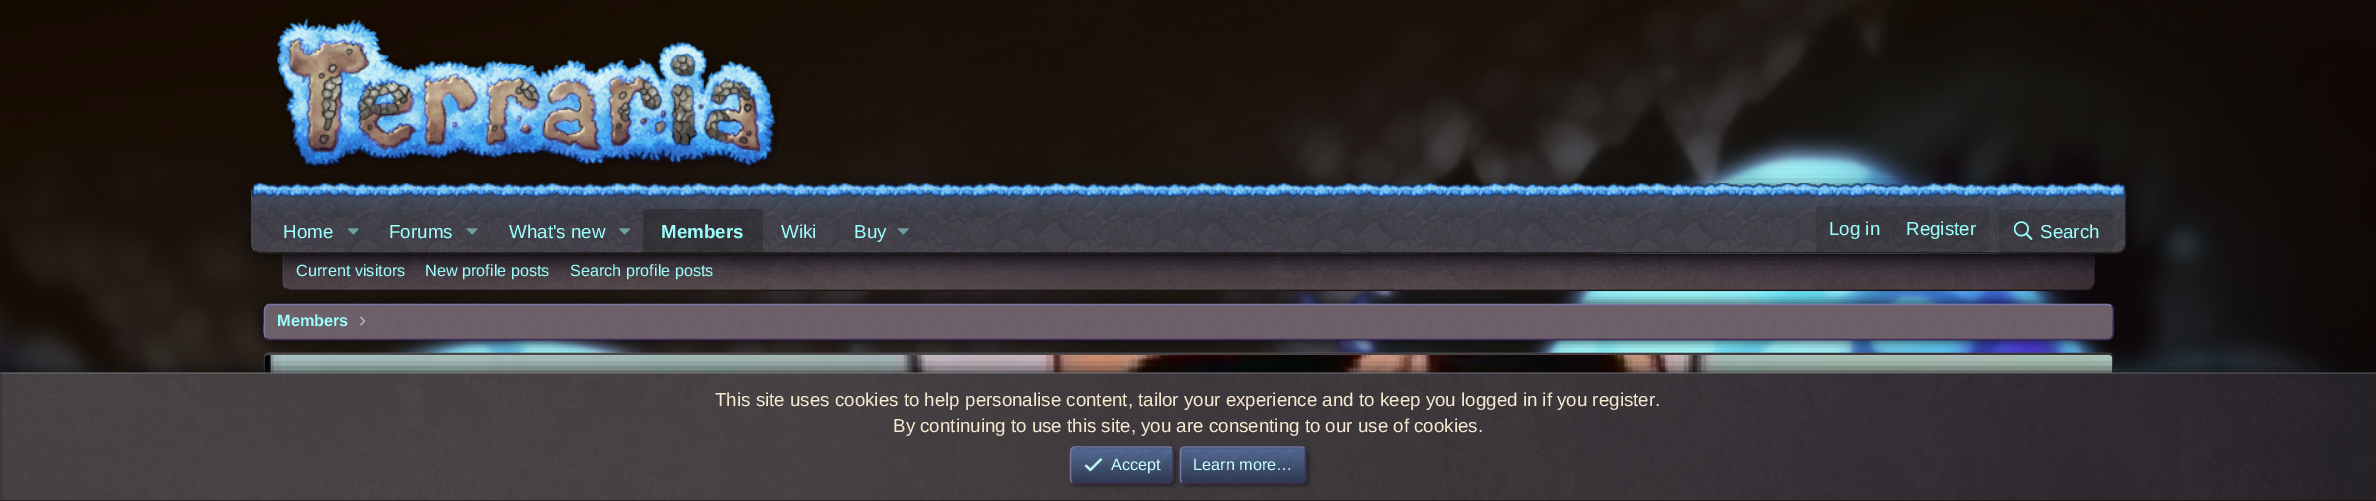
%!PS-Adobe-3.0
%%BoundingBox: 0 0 2376 501
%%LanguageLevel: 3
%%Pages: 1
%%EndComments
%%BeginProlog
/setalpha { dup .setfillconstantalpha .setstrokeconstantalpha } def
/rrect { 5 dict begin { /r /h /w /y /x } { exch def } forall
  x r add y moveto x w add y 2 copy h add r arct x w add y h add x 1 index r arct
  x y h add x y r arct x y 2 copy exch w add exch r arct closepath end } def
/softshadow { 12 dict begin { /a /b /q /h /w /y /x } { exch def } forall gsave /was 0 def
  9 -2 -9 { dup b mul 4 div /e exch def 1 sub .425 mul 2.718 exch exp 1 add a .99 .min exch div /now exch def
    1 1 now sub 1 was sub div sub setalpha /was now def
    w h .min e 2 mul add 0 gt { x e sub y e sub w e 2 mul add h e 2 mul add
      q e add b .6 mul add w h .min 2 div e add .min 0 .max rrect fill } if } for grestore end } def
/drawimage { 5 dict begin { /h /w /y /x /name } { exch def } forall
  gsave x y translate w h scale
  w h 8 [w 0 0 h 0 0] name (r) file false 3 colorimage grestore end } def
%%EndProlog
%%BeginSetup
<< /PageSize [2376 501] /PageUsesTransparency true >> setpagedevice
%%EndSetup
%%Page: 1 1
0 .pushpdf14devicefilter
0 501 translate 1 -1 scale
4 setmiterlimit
1 setgray
0 0 2376 501 rectfill
(images/1.raw) 0 0 2376 374 drawimage
(images/2.raw) 277 18 501 152 drawimage
0.039 setgray
264 304 1850 36 6 6 1 softshadow
(images/11.raw) 282 253 1813 39 drawimage
0.5 setalpha
0.051 0.016 0.008 setrgbcolor
newpath 2092 288.5 moveto 2091 287.5 lineto 2093 286 2094 283.5 2094 281 curveto 2094 254 lineto 2095 254 lineto 2095 281 lineto 2095 284 2094 286.5 2092 288.5 curveto closepath fill
newpath 2092 288 moveto 2090 290 2088 291 2085 291 curveto 292 291 lineto 290 291 287 290 285 288 curveto 286 287 lineto 288 289 290 290 292 290 curveto 2085 290 lineto 2087 290 2090 289 2091 287 curveto closepath fill
0.1 setalpha
1 setgray
newpath 284 254 moveto 284 281 lineto 284 283.5 285 285.5 286.5 287.5 curveto 285.5 288.5 lineto 284 287.5 283 286 282.5 284 curveto 282.5 254 lineto closepath fill
1 setalpha
0.039 setgray
251 190 1875 64 10 9.5 1 softshadow
(images/3.raw) 251 190 1876 64 drawimage
0.5 setalpha
0.051 0.016 0.008 setrgbcolor
newpath 2126 190 moveto 2125 190 lineto 2125 244 lineto 2125 246 2124 248 2122 250 curveto 2123 251 lineto 2125 249 2126 246 2126 244 curveto closepath fill
newpath 259 254 moveto 257 253 256 252 254 251 curveto 255 250 lineto 257 251 259 252 261 252 curveto 2116 252 lineto 2118 252 2121 251 2122 250 curveto 2123 251 lineto 2122 252 2120 253 2118 254 curveto closepath fill
0.1 setalpha
1 setgray
newpath 252 190 moveto 252 244 lineto 252 247 253 249 255 250 curveto 254 251 lineto 253 249 252 248 251 246 curveto 251 190 lineto closepath fill
1 setalpha
(images/4.raw) 252 183 1873 15 drawimage
(images/5.raw) 253 183 1872 15 drawimage
(images/6.raw) 348 228 11 7 drawimage
(images/7.raw) 466 228 12 7 drawimage
(images/8.raw) 619 228 11 7 drawimage
0.3 setalpha
0.078 setgray
newpath 645.5 209 moveto 760.5 209 lineto 762 209 763 210 763 211.5 curveto 763 253 lineto 643 253 lineto 643 211.5 lineto 643 210 644 209 645.5 209 curveto closepath fill
1 setalpha
(images/9.raw) 898 228 11 7 drawimage
0.15 setalpha
newpath 1821 206 moveto 1984 206 lineto 1987 206 1989 208 1989 211 curveto 1989 253 lineto 1816 253 lineto 1816 211 lineto 1816 208 1818 206 1821 206 curveto closepath fill
1893 206 1 44 rectfill
newpath 2004 209 moveto 2108 209 lineto 2111 209 2113 211 2113 214 curveto 2113 253 lineto 1999 253 lineto 1999 214 lineto 1999 211 2001 209 2004 209 curveto closepath fill
1 setalpha
(images/10.raw) 2014 221 19 19 drawimage
(images/12.raw) 263 303 1851 37 drawimage
0.247 0.173 0.361 setrgbcolor
1.2 setlinewidth
newpath 2111.5 306 moveto 2114.5 309 2113 318 2113 322 curveto 2113 330 lineto 2113 334 2113 339.5 2107.5 339.5 curveto 270 339.5 lineto 268.5 339.5 267 339 266 337.5 curveto stroke
0.471 0.463 0.635 setrgbcolor
newpath 266 337.5 moveto 263 334.5 264.5 325.5 264.5 322 curveto 264.5 314 lineto 264.5 310 264.5 304.5 270 304.5 curveto 2107.5 304.5 lineto 2109 304.5 2110.5 305 2111.5 306 curveto stroke
(images/13.raw) 360 316 5 10 drawimage
(images/14.raw) 263 352 1851 22 drawimage
0.5 setalpha
0.051 0.016 0.008 setrgbcolor
newpath 2112 354.5 moveto 2113 357 lineto 2113 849 lineto 2113 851 2111 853 2109 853 curveto 269 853 lineto 265.5 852 lineto stroke
0.1 setalpha
1 setgray
newpath 265.5 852 moveto 264.5 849 lineto 264.5 357.5 lineto 264.5 355 266.5 353 269 353 curveto 2109 353 lineto 2112 354.5 lineto stroke
268 354 1843 1 rectfill
0.5 setalpha
0 setgray
newpath 269 355 moveto 2109 355 lineto 2111 355 2113 357 2113 359 curveto 2113 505 lineto 265 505 lineto 265 359 lineto 265 357 267 355 269 355 curveto closepath fill
1 setalpha
(images/15.raw) 265 355 1848 19 drawimage
0.039 setgray
0 373 2376 128 0 9.5 1 softshadow
(images/16.raw) 0 372 2376 129 drawimage
0.1 setalpha
1 setgray
newpath 0 372 moveto 2376 372 lineto 2375 374 lineto 1 374 lineto closepath fill
0.5 setalpha
0.051 0.016 0.008 setrgbcolor
newpath 2376 372 moveto 2376 501 lineto 2375 500 lineto 2375 374 lineto closepath fill
newpath 2376 501 moveto 0 501 lineto 1 500 lineto 2375 500 lineto closepath fill
0.1 setalpha
1 setgray
newpath 0 501 moveto 0 372 lineto 1 374 lineto 1 500 lineto closepath fill
1 setalpha
0.039 setgray
1073 449 103 37 5 2 0.5 softshadow
(images/17.raw) 1070 446 104 38 drawimage
0.247 0.173 0.361 setrgbcolor
newpath 1172 448 moveto 1174 450 1173 453.5 1173 456 curveto 1173 465 lineto 1173 486.5 1176 483 1153 483 curveto 1075 483 lineto 1072 482 lineto stroke
0.471 0.463 0.635 setrgbcolor
newpath 1072 482 moveto 1070 480 1070.5 476.5 1070.5 474 curveto 1070.5 465 lineto 1070.5 443.5 1068 447 1090.5 447 curveto 1169 447 lineto 1172 448 lineto stroke
(images/18.raw) 1084 458 19 14 drawimage
0.039 setgray
1183 449 126 37 5 2 0.5 softshadow
(images/19.raw) 1179 446 128 38 drawimage
0.247 0.173 0.361 setrgbcolor
newpath 1304.5 448 moveto 1305 449 1305.5 450 1305.5 451 curveto 1305.5 479 lineto 1305.5 480 1305 481 1304.5 482 curveto 1303.5 482.5 1302.5 483 1301 483 curveto 1185 483 lineto 1184 483 1182.5 482.5 1182 482 curveto stroke
0.471 0.463 0.635 setrgbcolor
newpath 1182 482 moveto 1181 481 1180.5 480 1180.5 479 curveto 1180.5 451 lineto 1180.5 450 1181 449 1182 448 curveto 1182.5 447.5 1184 447 1185 447 curveto 1301 447 lineto 1302.5 447 1303.5 447.5 1304.5 448 curveto stroke
/LiberationSans-Regular [18.75 0 0 -18.75 0 0] selectfont
0.612 1 0.992 setrgbcolor
283 238 moveto (Home) show
389 238 moveto (Forums) show
509 238 moveto (What's new) show
/LiberationSans-Bold [18.75 0 0 -18.75 0 0] selectfont
661 238 moveto (Members) show
/LiberationSans-Regular [18.75 0 0 -18.75 0 0] selectfont
781 238 moveto (Wiki) show
854 238 moveto (Buy) show
1829 235 moveto (Log in) show
1906 235 moveto (Register) show
2040 238 moveto (Search) show
/LiberationSans-Regular [16.25 0 0 -16.25 0 0] selectfont
296 276 moveto (Current visitors) show
425 276 moveto (New profile posts) show
570 276 moveto (Search profile posts) show
/LiberationSans-Bold [16.25 0 0 -16.25 0 0] selectfont
277 326 moveto (Members) show
/LiberationSans-Regular [18.75 0 0 -18.75 0 0] selectfont
0.969 0.91 0.82 setrgbcolor
715 406 moveto (This site uses cookies to help personalise content, tailor your experience and to keep you logged in if you register.) show
893 432 moveto (By continuing to use this site, you are consenting to our use of cookies.) show
/LiberationSans-Regular [16.25 0 0 -16.25 0 0] selectfont
0.784 1 1 setrgbcolor
1111 470 moveto (Accept) show
1193 470 moveto (Learn more…) show
.poppdf14devicefilter showpage
%%EOF
